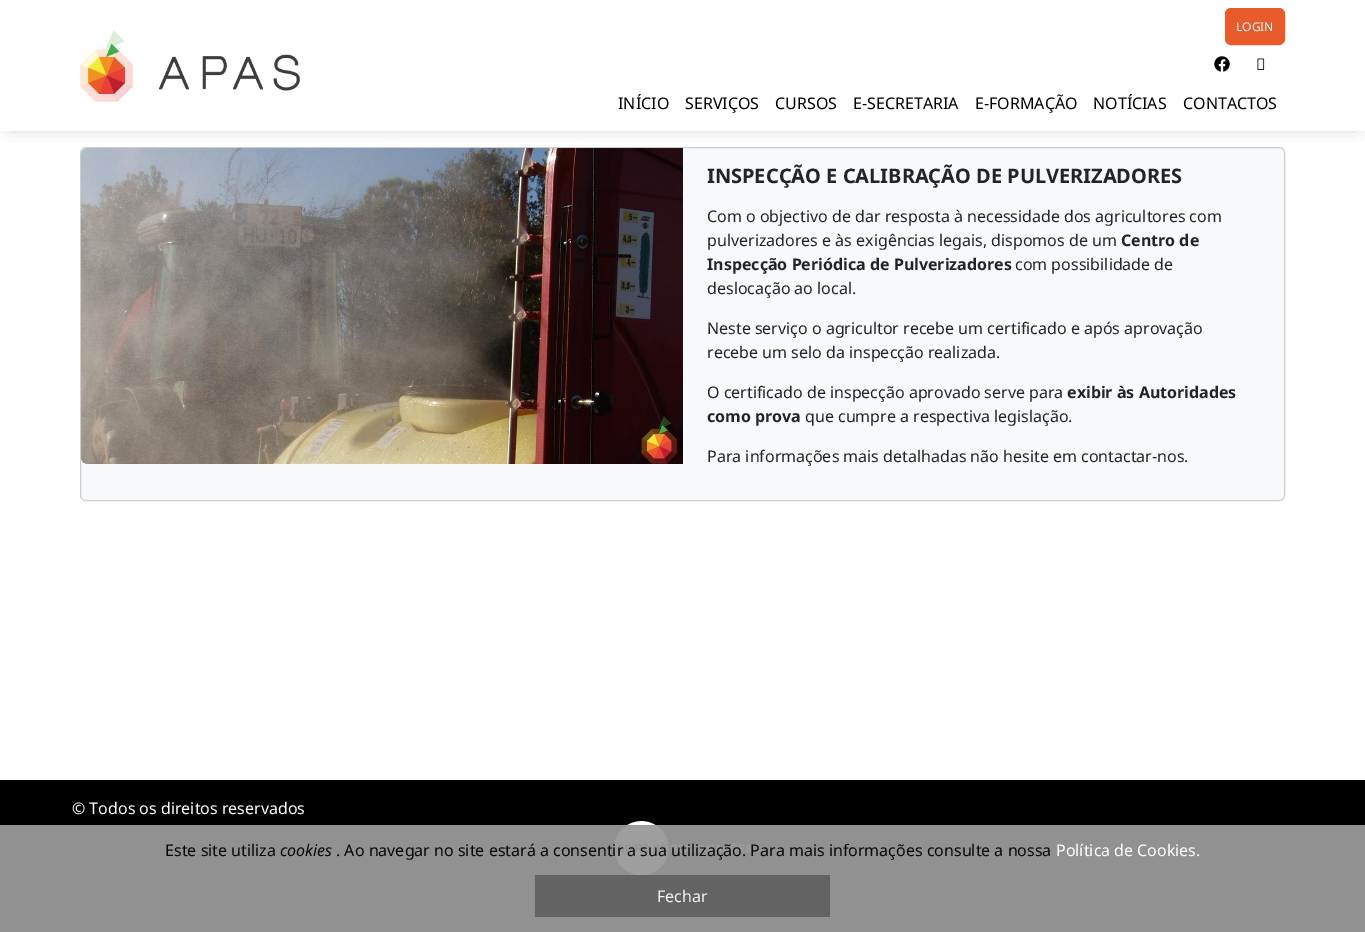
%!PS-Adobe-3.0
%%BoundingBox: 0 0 1365 932
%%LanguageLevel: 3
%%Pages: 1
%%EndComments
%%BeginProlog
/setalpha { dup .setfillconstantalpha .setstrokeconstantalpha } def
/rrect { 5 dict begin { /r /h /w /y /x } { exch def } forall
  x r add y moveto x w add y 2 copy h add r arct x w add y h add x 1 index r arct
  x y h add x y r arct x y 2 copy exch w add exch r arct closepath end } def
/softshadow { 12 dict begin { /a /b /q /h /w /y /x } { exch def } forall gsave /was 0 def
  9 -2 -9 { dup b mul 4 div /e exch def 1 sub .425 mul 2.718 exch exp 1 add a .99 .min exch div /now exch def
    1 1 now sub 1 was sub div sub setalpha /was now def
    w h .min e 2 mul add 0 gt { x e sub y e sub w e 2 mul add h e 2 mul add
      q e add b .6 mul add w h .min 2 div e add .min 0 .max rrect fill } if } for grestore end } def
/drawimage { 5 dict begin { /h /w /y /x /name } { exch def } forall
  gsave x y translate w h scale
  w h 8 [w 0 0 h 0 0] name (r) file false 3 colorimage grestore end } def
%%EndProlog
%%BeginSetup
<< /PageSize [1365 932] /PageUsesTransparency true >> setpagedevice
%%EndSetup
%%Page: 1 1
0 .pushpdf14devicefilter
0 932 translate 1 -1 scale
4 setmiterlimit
1 setgray
0 0 1365 932 rectfill
0.973 0.976 0.98 setrgbcolor
80.5 147.5 1204 353 5.5 rrect gsave fill grestore
0.8 0.804 0.808 setrgbcolor
stroke
(images/4.raw) 81 148 602 316 drawimage
gsave
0 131 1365 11 rectclip
0.522 setgray
10 10 1345 111 0 10 1 softshadow
grestore
(images/1.raw) 80 30 221 72 drawimage
0.918 0.357 0.169 setrgbcolor
1225.5 8.5 59 36 5.5 rrect gsave fill grestore
stroke
(images/2.raw) 1214 56 16 16 drawimage
(images/3.raw) 1257 58 8 12 drawimage
0.569 setgray
0 825 1365 107 rectfill
0 setgray
0 780 1365 45 rectfill
(images/5.raw) 614 820 138 56 drawimage
0.95 setalpha
0.38 setgray
535 875 295 42 rectfill
/NotoSans-Regular [12 0 0 -12 0 0] selectfont
1 setalpha
1 setgray
1236 31 moveto (LOGIN) show
/NotoSans-Regular [16 0 0 -16 0 0] selectfont
0 setgray
618 109 moveto (INÍCIO) show
685 109 moveto (SERVIÇOS) show
775 109 moveto (CURSOS) show
853 109 moveto (E-SECRETARIA) show
975 109 moveto (E-FORMAÇÃO) show
1093 109 moveto (NOTÍCIAS) show
1183 109 moveto (CONTACTOS) show
/NotoSans-Bold [20 0 0 -20 0 0] selectfont
0.129 0.145 0.161 setrgbcolor
707 183 moveto (INSPECÇÃO E CALIBRAÇÃO DE PULVERIZADORES) show
/NotoSans-Regular [16 0 0 -16 0 0] selectfont
707 222 moveto (Com o objectivo de dar resposta à necessidade dos agricultores com) show
707 246 moveto (pulverizadores e às exigências legais, dispomos de um) show
/NotoSans-Bold [16 0 0 -16 0 0] selectfont
1121 246 moveto (Centro de) show
707 270 moveto (Inspecção Periódica de Pulverizadores) show
/NotoSans-Regular [16 0 0 -16 0 0] selectfont
1015 270 moveto (com possibilidade de) show
707 294 moveto (deslocação ao local.) show
707 334 moveto (Neste serviço o agricultor recebe um certificado e após aprovação) show
707 358 moveto (recebe um selo da inspecção realizada.) show
707 398 moveto (O certificado de inspecção aprovado serve para) show
/NotoSans-Bold [16 0 0 -16 0 0] selectfont
1067 398 moveto (exibir às Autoridades) show
707 422 moveto (como prova) show
/NotoSans-Regular [16 0 0 -16 0 0] selectfont
805 422 moveto (que cumpre a respectiva legislação.) show
707 462 moveto (Para informações mais detalhadas não hesite em contactar-nos.) show
0.027 setgray
165 856 moveto (Este site utiliza) show
/NotoSans-Italic [16 0 0 -16 0 0] selectfont
280 856 moveto (cookies) show
/NotoSans-Regular [16 0 0 -16 0 0] selectfont
336 856 moveto (. Ao navegar no site estará a consentir a sua utilização. Para mais informações consulte a nossa) show
1 setgray
1056 856 moveto (Política de Cookies.) show
0.949 setgray
657 902 moveto (Fechar) show
1 setgray
72 814 moveto (© Todos os direitos reservados) show
.poppdf14devicefilter showpage
%%EOF
